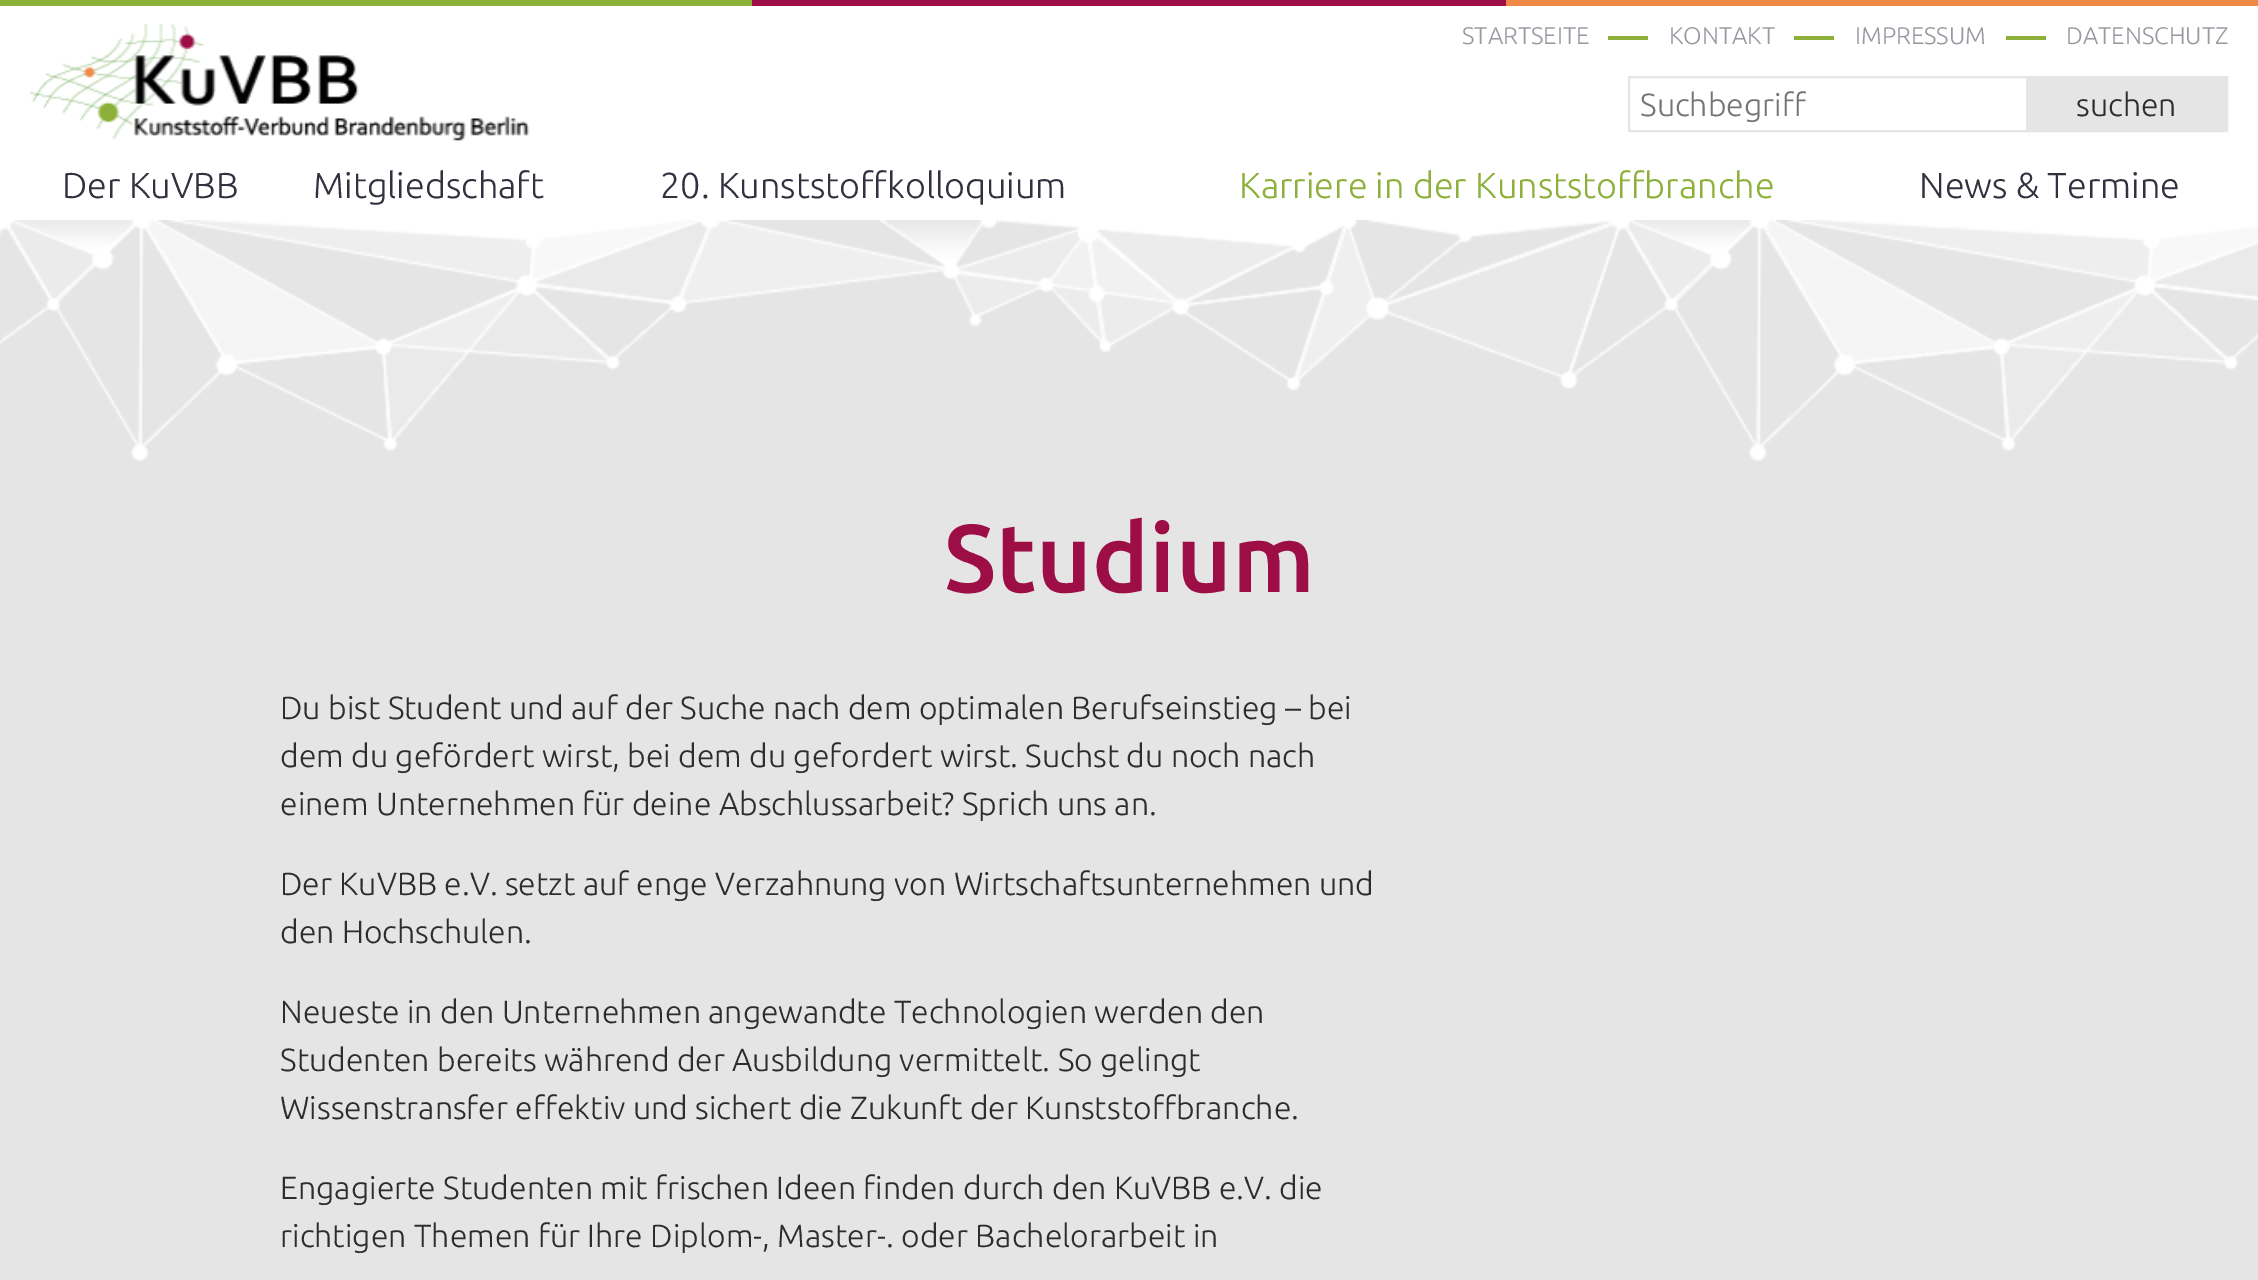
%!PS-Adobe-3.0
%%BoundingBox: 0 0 2258 1280
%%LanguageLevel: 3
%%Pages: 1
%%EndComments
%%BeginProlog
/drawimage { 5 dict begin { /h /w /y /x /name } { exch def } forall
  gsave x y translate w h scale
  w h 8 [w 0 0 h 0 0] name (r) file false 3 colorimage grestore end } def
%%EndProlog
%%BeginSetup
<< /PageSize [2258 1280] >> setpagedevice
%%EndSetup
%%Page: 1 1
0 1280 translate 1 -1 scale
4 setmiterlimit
0.898 setgray
0 0 2258 1280 rectfill
1 setgray
0 6 2258 214 rectfill
0.62 0.051 0.282 setrgbcolor
752 0 754 6 rectfill
0.545 0.694 0.22 setrgbcolor
0 0 752 6 rectfill
0.937 0.537 0.271 setrgbcolor
1506 0 752 6 rectfill
(images/1.raw) 30 24 500 117 drawimage
0.549 0.69 0.224 setrgbcolor
1608 36 40 4 rectfill
1794 36 40 4 rectfill
2006 36 40 4 rectfill
0.898 setgray
2 setlinewidth
1629 77 598 54 rectstroke
2026 78 200 52 rectfill
(images/2.raw) 0 220 2258 242 drawimage
/Ubuntu-Light [24 0 0 -24 0 0] selectfont
0.596 0.596 0.627 setrgbcolor
1462 44 moveto (STARTSEITE) show
1669 44 moveto (KONTAKT) show
1855 44 moveto (IMPRESSUM) show
2066 44 moveto (DATENSCHUTZ) show
/Ubuntu-Light [32 0 0 -32 0 0] selectfont
0.459 setgray
1640 116 moveto (Suchbegriff) show
0.176 setgray
2076 116 moveto (suchen) show
/Ubuntu-Light [36 0 0 -36 0 0] selectfont
0.192 0.192 0.251 setrgbcolor
62 198 moveto (Der KuVBB) show
313 198 moveto (Mitgliedschaft) show
660 198 moveto (20. Kunststoffkolloquium) show
0.549 0.69 0.224 setrgbcolor
1239 198 moveto (Karriere in der Kunststoffbranche) show
0.192 0.192 0.251 setrgbcolor
1919 198 moveto (News & Termine) show
/Ubuntu-Medium [96 0 0 -96 0 0] selectfont
0.616 0.051 0.275 setrgbcolor
944 592 moveto (Studium) show
/Ubuntu-Light [32 0 0 -32 0 0] selectfont
0.176 setgray
280 719 moveto (Du bist Student und auf der Suche nach dem optimalen Berufseinstieg – bei) show
280 767 moveto (dem du gefördert wirst, bei dem du gefordert wirst. Suchst du noch nach) show
280 815 moveto (einem Unternehmen für deine Abschlussarbeit? Sprich uns an.) show
280 895 moveto (Der KuVBB e.V. setzt auf enge Verzahnung von Wirtschaftsunternehmen und) show
280 943 moveto (den Hochschulen.) show
280 1023 moveto (Neueste in den Unternehmen angewandte Technologien werden den) show
280 1071 moveto (Studenten bereits während der Ausbildung vermittelt. So gelingt) show
280 1119 moveto (Wissenstransfer effektiv und sichert die Zukunft der Kunststoffbranche.) show
280 1199 moveto (Engagierte Studenten mit frischen Ideen finden durch den KuVBB e.V. die) show
280 1247 moveto (richtigen Themen für Ihre Diplom-, Master-. oder Bachelorarbeit in) show
showpage
%%EOF
